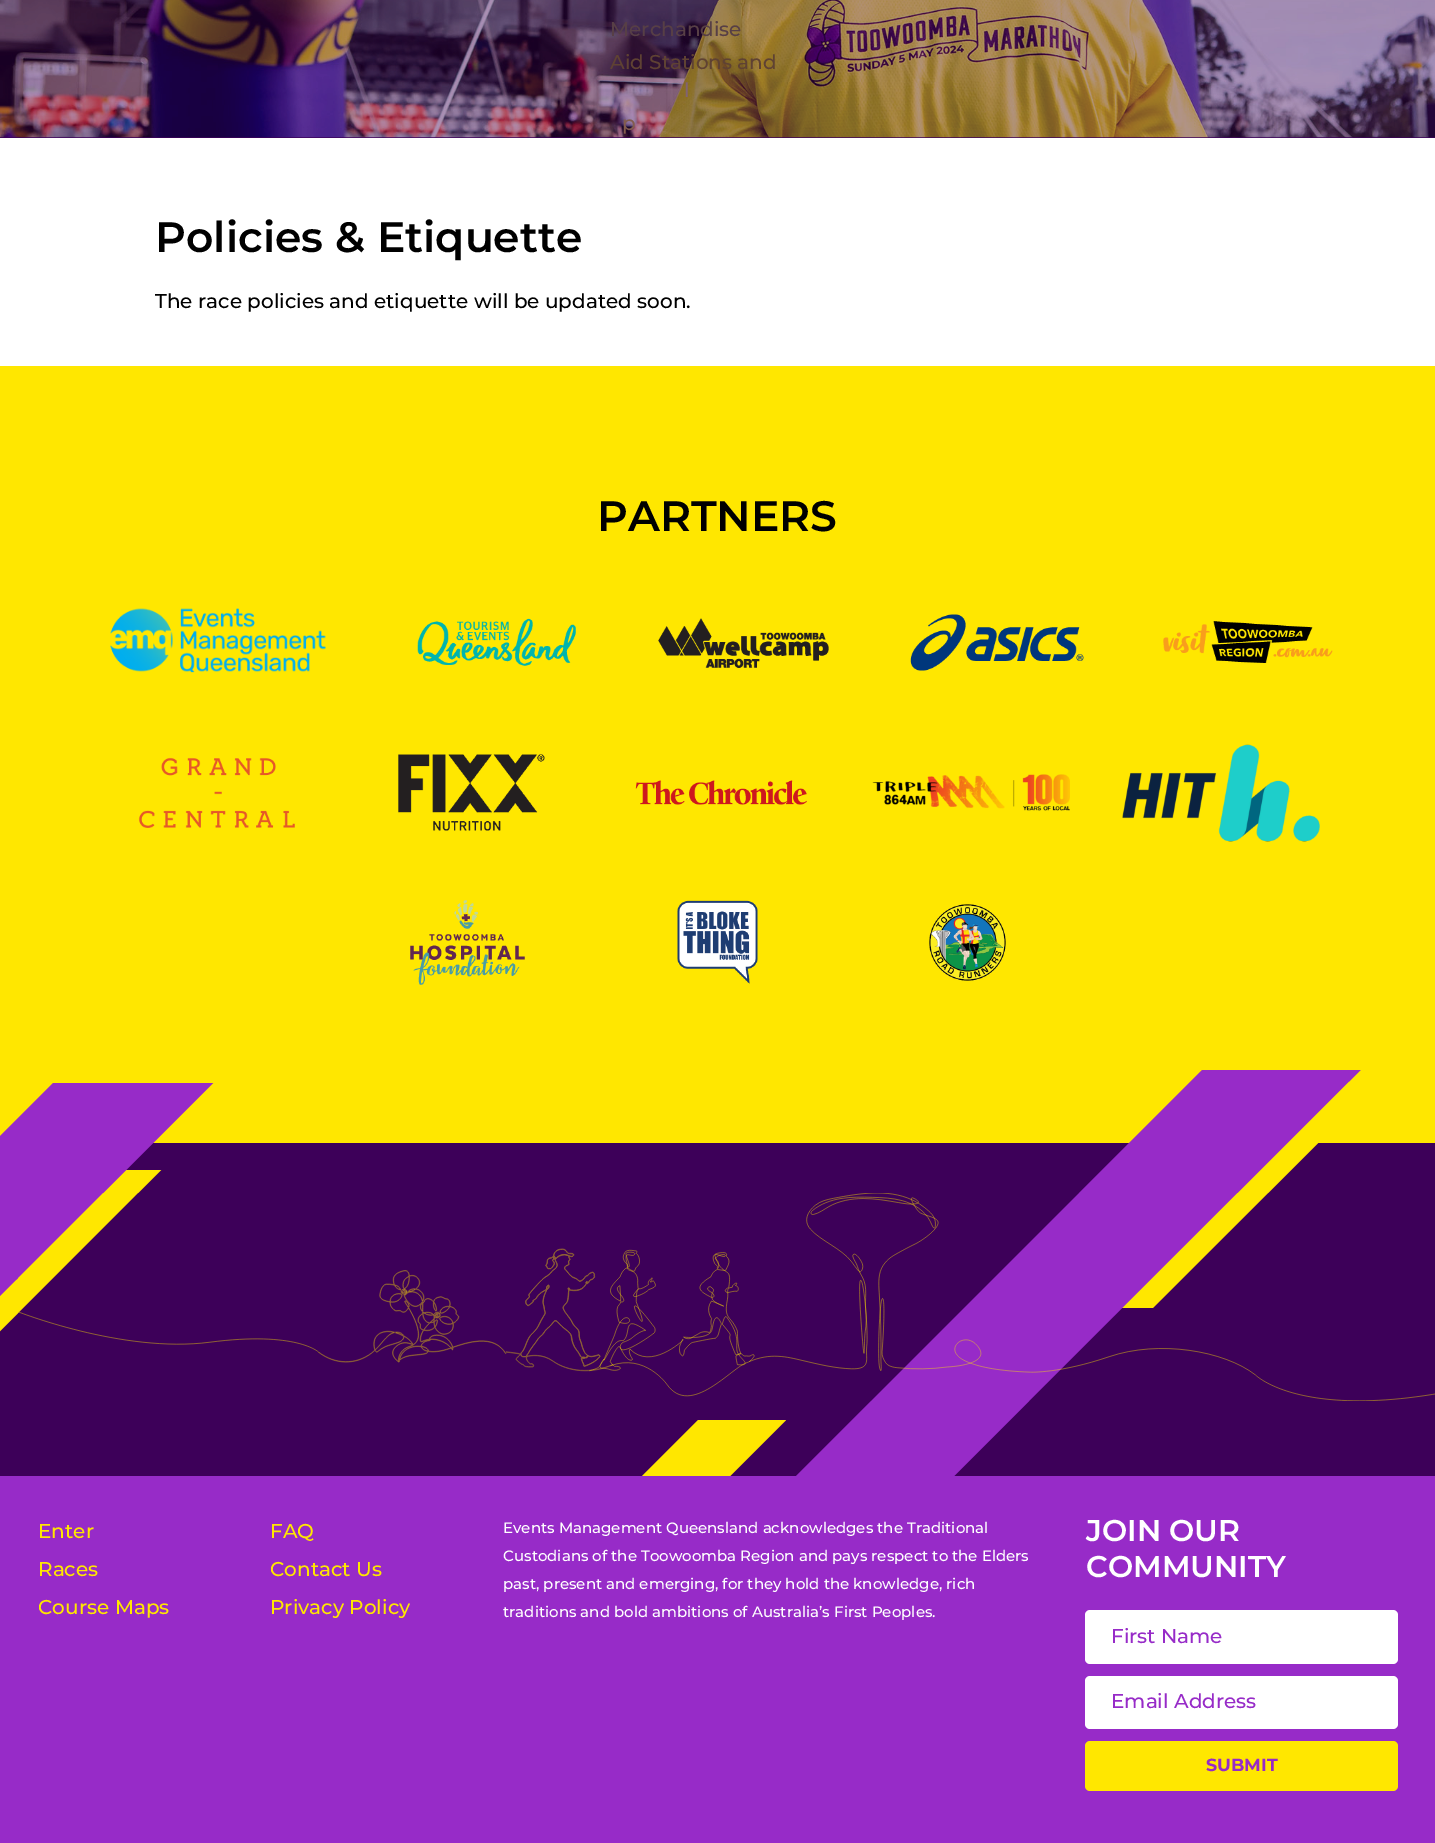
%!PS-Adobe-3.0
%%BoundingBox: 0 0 1435 1843
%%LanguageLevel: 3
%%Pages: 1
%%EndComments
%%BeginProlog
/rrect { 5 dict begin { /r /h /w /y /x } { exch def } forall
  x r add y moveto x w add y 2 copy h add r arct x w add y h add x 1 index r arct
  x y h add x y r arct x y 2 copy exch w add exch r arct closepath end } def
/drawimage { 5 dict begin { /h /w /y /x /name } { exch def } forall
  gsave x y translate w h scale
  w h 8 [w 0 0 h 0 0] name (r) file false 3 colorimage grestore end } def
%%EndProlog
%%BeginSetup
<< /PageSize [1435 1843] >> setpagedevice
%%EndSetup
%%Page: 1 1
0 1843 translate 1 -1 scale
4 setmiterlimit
1 setgray
0 0 1435 1843 rectfill
0.239 0 0.349 setrgbcolor
0 0 1435 138 rectfill
(images/1.raw) 0 0 1435 138 drawimage
1 0.906 0 setrgbcolor
0 366 1435 777 rectfill
(images/2.raw) 110 608 216 65 drawimage
(images/3.raw) 417 618 159 48 drawimage
(images/4.raw) 658 618 171 50 drawimage
(images/5.raw) 910 614 174 57 drawimage
(images/6.raw) 1163 621 170 42 drawimage
(images/7.raw) 138 757 157 71 drawimage
(images/8.raw) 398 754 147 77 drawimage
(images/9.raw) 635 780 172 25 drawimage
(images/10.raw) 872 774 198 37 drawimage
(images/11.raw) 1122 744 198 98 drawimage
(images/12.raw) 410 900 115 85 drawimage
(images/13.raw) 677 900 81 84 drawimage
(images/14.raw) 929 904 77 77 drawimage
0.239 0 0.349 setrgbcolor
0 1143 1435 333 rectfill
gsave
718 1051 717 257 rectclip
1 0.906 0 setrgbcolor
newpath 1048 1325 moveto 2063 311 lineto 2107 355 lineto 1092 1369 lineto closepath fill
grestore
gsave
0 1170 718 306 rectclip
1 0.906 0 setrgbcolor
newpath -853 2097 moveto 161 1082 lineto 205 1126 lineto -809 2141 lineto closepath fill
grestore
gsave
0 1083 718 393 rectclip
0.592 0.169 0.784 setrgbcolor
newpath -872 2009 moveto 142 994 lineto 222 1074 lineto -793 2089 lineto closepath fill
grestore
gsave
718 1070 717 406 rectclip
0.592 0.169 0.784 setrgbcolor
newpath 763 1509 moveto 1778 494 lineto 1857 574 lineto 842 1588 lineto closepath fill
grestore
(images/15.raw) 18 1193 1417 208 drawimage
gsave
69 1420 717 56 rectclip
1 0.906 0 setrgbcolor
newpath -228 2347 moveto 786 1332 lineto 830 1376 lineto -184 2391 lineto closepath fill
grestore
0.592 0.169 0.784 setrgbcolor
0 1476 1435 367 rectfill
1 setgray
1085 1610 313 54 5 rrect fill
1085 1676 313 53 5 rrect fill
1 0.906 0 setrgbcolor
1085 1741 313 50 5 rrect fill
/Montserrat-Medium [20 0 0 -20 0 0] selectfont
0.341 0.247 0.275 setrgbcolor
610 36 moveto (Merchandise) show
0.373 0.259 0.2 setrgbcolor
610 69 moveto (Aid Stations and) show
0.506 0.388 0.451 setrgbcolor
684 97 moveto (l) show
0.51 0.361 0.306 setrgbcolor
622 130 moveto (p) show
/Montserrat-SemiBold [42.5 0 0 -42.5 0 0] selectfont
0 setgray
155 252 moveto (Policies & Etiquette) show
/Montserrat-Medium [20 0 0 -20 0 0] selectfont
155 308 moveto (The race policies and etiquette will be updated soon.) show
/Montserrat-SemiBold [42.5 0 0 -42.5 0 0] selectfont
597 531 moveto (PARTNERS) show
/Montserrat-Medium [20 0 0 -20 0 0] selectfont
1 0.906 0 setrgbcolor
38 1538 moveto (Enter) show
270 1538 moveto (FAQ) show
38 1576 moveto (Races) show
270 1576 moveto (Contact Us) show
38 1614 moveto (Course Maps) show
270 1614 moveto (Privacy Policy) show
/Montserrat-Medium [15 0 0 -15 0 0] selectfont
1 setgray
503 1533 moveto (Events Management Queensland acknowledges the Traditional) show
503 1561 moveto (Custodians of the Toowoomba Region and pays respect to the Elders) show
503 1589 moveto (past, present and emerging, for they hold the knowledge, rich) show
503 1617 moveto (traditions and bold ambitions of Australia’s First Peoples.) show
/Montserrat-SemiBold [30 0 0 -30 0 0] selectfont
1086 1541 moveto (JOIN OUR) show
1086 1577 moveto (COMMUNITY) show
/Montserrat-Medium [20 0 0 -20 0 0] selectfont
0.592 0.169 0.784 setrgbcolor
1111 1643 moveto (First Name) show
1111 1708 moveto (Email Address) show
/Montserrat-Bold [17.5 0 0 -17.5 0 0] selectfont
1206 1771 moveto (SUBMIT) show
showpage
%%EOF
